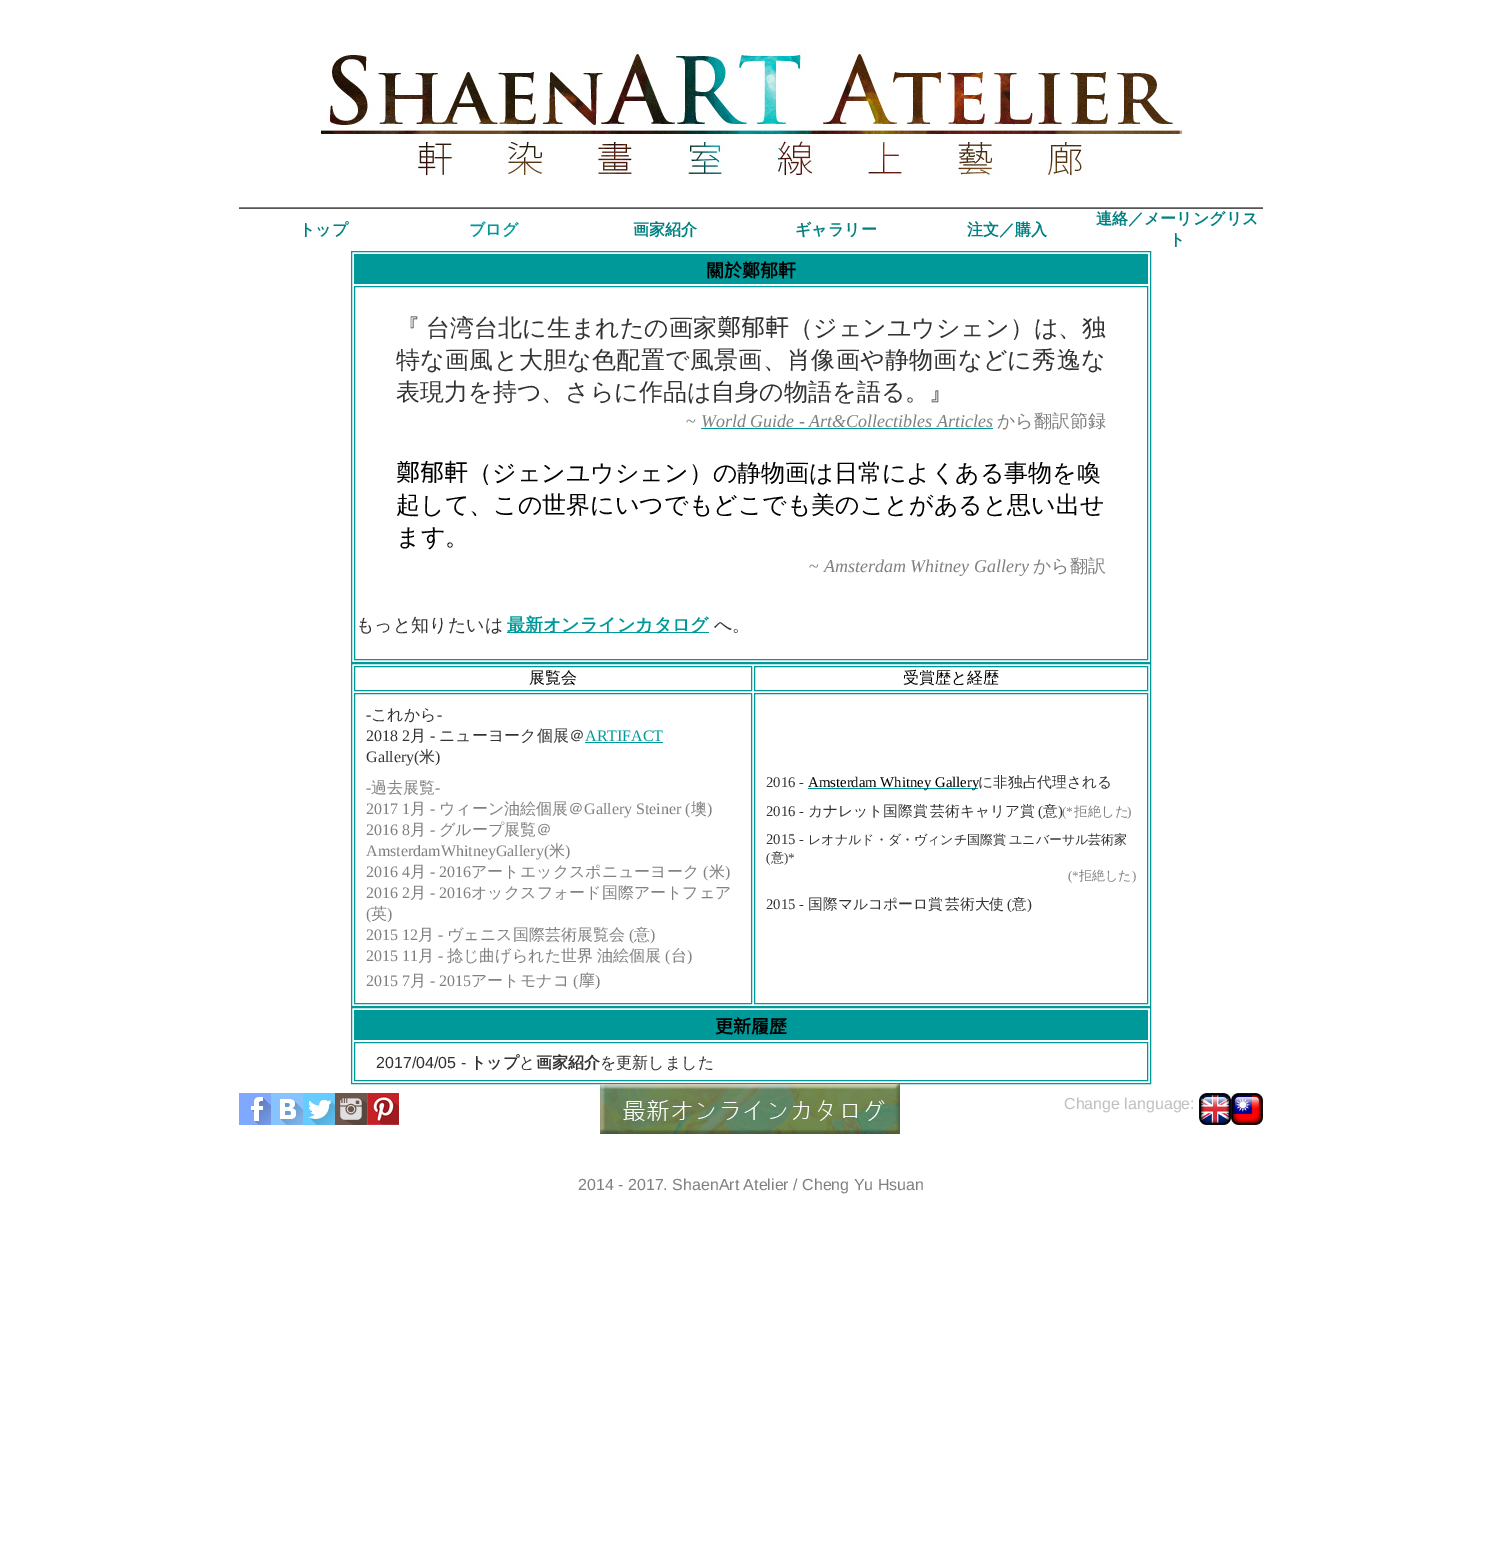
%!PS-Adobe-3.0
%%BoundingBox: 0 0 1502 1563
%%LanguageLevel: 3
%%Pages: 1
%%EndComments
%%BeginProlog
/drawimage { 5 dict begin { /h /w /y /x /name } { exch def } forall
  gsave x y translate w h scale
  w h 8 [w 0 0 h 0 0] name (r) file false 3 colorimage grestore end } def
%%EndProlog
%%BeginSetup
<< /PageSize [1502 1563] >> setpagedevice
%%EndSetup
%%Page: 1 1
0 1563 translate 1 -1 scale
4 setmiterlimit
1 setgray
0 0 1502 1563 rectfill
(images/1.raw) 320 48 863 128 drawimage
0.502 setgray
239 207 1024 1 rectfill
0.333 setgray
239 208 1024 1 rectfill
0 0.6 0.6 setrgbcolor
351.5 251.5 799 411 rectstroke
354 254 794 30 rectfill
354.5 286.5 793 373 rectstroke
701 428 292 1 rectfill
507 632 202 1 rectfill
351.5 663.5 799 343 rectstroke
354.5 666.5 397 24 rectstroke
754.5 666.5 393 24 rectstroke
354.5 693.5 397 310 rectstroke
585 742 78 1 rectfill
754.5 693.5 393 310 rectstroke
808 788 170 1 rectfill
351.5 1007.5 799 76 rectstroke
354 1010 794 30 rectfill
354.5 1042.5 793 38 rectstroke
(images/2.raw) 239 1093 32 32 drawimage
(images/3.raw) 271 1093 32 32 drawimage
(images/4.raw) 303 1093 32 32 drawimage
(images/5.raw) 335 1093 32 32 drawimage
(images/6.raw) 367 1093 32 32 drawimage
(images/7.raw) 600 1084 300 50 drawimage
(images/8.raw) 1199 1093 32 32 drawimage
(images/9.raw) 1231 1093 32 32 drawimage
/WenQuanYiZenHei-Bold [16 0 0 -16 0 0] selectfont
0 0.502 0.502 setrgbcolor
299 235 moveto (トップ) show
0 0.6 0.6 setrgbcolor
469 235 moveto (ブログ) show
0 0.502 0.502 setrgbcolor
633 235 moveto (画家紹介) show
795 235 moveto (ギャラリー) show
967 235 moveto (注文／購入) show
1096 224 moveto (連絡／メーリングリス) show
1169 245 moveto (ト) show
/NotoSansCJKTC-Bold [18 0 0 -18 0 0] selectfont
0 setgray
706 277 moveto (關於鄭郁軒) show
/WenQuanYiZenHei-Medium [24 0 0 -24 0 0] selectfont
0.2 setgray
396 336 moveto (『) show
426 336 moveto (台湾台北に生まれたの画家) show
/NotoSansCJKTC-Regular [24 0 0 -24 0 0] selectfont
717 336 moveto (鄭郁軒) show
/WenQuanYiZenHei-Medium [24 0 0 -24 0 0] selectfont
789 336 moveto (（ジェンユウシェン）は、独) show
396 368 moveto 0.3 0 (特な画風と大胆な色配置で風景画、肖像画や静物画などに秀逸な) ashow
396 400 moveto (表現力を持つ、さらに作品は自身の物語を語る。』) show
/LiberationSerif-Regular [18 0 0 -18 0 0] selectfont
0.502 setgray
686 427 moveto (~) show
/LiberationSerif-Italic [18 0 0 -18 0 0] selectfont
701 427 moveto (World Guide - Art&Collectibles Articles) show
/WenQuanYiZenHei-Medium [18 0 0 -18 0 0] selectfont
997 427 moveto (から翻訳節録) show
/NotoSansCJKTC-Regular [24 0 0 -24 0 0] selectfont
0 setgray
396 481 moveto (鄭郁軒) show
/WenQuanYiZenHei-Medium [24 0 0 -24 0 0] selectfont
468 481 moveto (（ジェンユウシェン）の静物画は日常によくある事物を喚) show
396 513 moveto (起して、この世界にいつでもどこでも美のことがあると思い出せ) show
396 545 moveto (ます。) show
/LiberationSerif-Regular [18 0 0 -18 0 0] selectfont
0.502 setgray
809 572 moveto (~) show
/LiberationSerif-Italic [18 0 0 -18 0 0] selectfont
824 572 moveto (Amsterdam Whitney Gallery) show
/WenQuanYiZenHei-Medium [18 0 0 -18 0 0] selectfont
1033 572 moveto (から翻訳) show
0.2 setgray
356 631 moveto (もっと知りたいは) show
/WenQuanYiZenHei-Bold [18 0 0 -18 0 0] selectfont
0 0.6 0.6 setrgbcolor
507 631 moveto (最新オンラインカタログ) show
/WenQuanYiZenHei-Medium [18 0 0 -18 0 0] selectfont
0.2 setgray
714 631 moveto (へ。) show
/WenQuanYiZenHei-Medium [16 0 0 -16 0 0] selectfont
0 setgray
529 683 moveto (展覧会) show
903 683 moveto (受賞歴と経歴) show
/LiberationSerif-Regular [16 0 0 -16 0 0] selectfont
0.2 setgray
366 720 moveto (-) show
/WenQuanYiZenHei-Medium [16 0 0 -16 0 0] selectfont
371 720 moveto (これから) show
/LiberationSerif-Regular [16 0 0 -16 0 0] selectfont
437 720 moveto (-) show
366 741 moveto (2018 2) show
/WenQuanYiZenHei-Medium [16 0 0 -16 0 0] selectfont
410 741 moveto (月) show
/LiberationSerif-Regular [16 0 0 -16 0 0] selectfont
430 741 moveto (-) show
/WenQuanYiZenHei-Medium [16 0 0 -16 0 0] selectfont
439 741 moveto (ニューヨーク個展＠) show
/LiberationSerif-Regular [16 0 0 -16 0 0] selectfont
0 0.6 0.6 setrgbcolor
585 741 moveto (ARTIFACT) show
0.2 setgray
366 762 moveto (Gallery\() show
/WenQuanYiZenHei-Medium [16 0 0 -16 0 0] selectfont
419 762 moveto (米) show
/LiberationSerif-Regular [16 0 0 -16 0 0] selectfont
435 762 moveto (\)) show
0.502 setgray
366 793 moveto (-) show
/WenQuanYiZenHei-Medium [16 0 0 -16 0 0] selectfont
371 793 moveto (過去展覧) show
/LiberationSerif-Regular [16 0 0 -16 0 0] selectfont
435 793 moveto (-) show
366 814 moveto (2017 1) show
/WenQuanYiZenHei-Medium [16 0 0 -16 0 0] selectfont
410 814 moveto (月) show
/LiberationSerif-Regular [16 0 0 -16 0 0] selectfont
430 814 moveto (-) show
/WenQuanYiZenHei-Medium [16 0 0 -16 0 0] selectfont
439 814 moveto (ウィーン油絵個展＠) show
/LiberationSerif-Regular [16 0 0 -16 0 0] selectfont
584 814 moveto (Gallery Steiner \() show
/WenQuanYiZenHei-Medium [16 0 0 -16 0 0] selectfont
691 814 moveto (墺) show
/LiberationSerif-Regular [16 0 0 -16 0 0] selectfont
707 814 moveto (\)) show
366 835 moveto (2016 8) show
/WenQuanYiZenHei-Medium [16 0 0 -16 0 0] selectfont
410 835 moveto (月) show
/LiberationSerif-Regular [16 0 0 -16 0 0] selectfont
430 835 moveto (-) show
/WenQuanYiZenHei-Medium [16 0 0 -16 0 0] selectfont
439 835 moveto (グループ展覧＠) show
/LiberationSerif-Regular [16 0 0 -16 0 0] selectfont
366 856 moveto (AmsterdamWhitneyGallery\() show
/WenQuanYiZenHei-Medium [16 0 0 -16 0 0] selectfont
549 856 moveto (米) show
/LiberationSerif-Regular [16 0 0 -16 0 0] selectfont
565 856 moveto (\)) show
366 877 moveto (2016 4) show
/WenQuanYiZenHei-Medium [16 0 0 -16 0 0] selectfont
410 877 moveto (月) show
/LiberationSerif-Regular [16 0 0 -16 0 0] selectfont
430 877 moveto (- 2016) show
/WenQuanYiZenHei-Medium [16 0 0 -16 0 0] selectfont
471 877 moveto (アートエックスポニューヨーク) show
/LiberationSerif-Regular [16 0 0 -16 0 0] selectfont
703 877 moveto (\() show
/WenQuanYiZenHei-Medium [16 0 0 -16 0 0] selectfont
709 877 moveto (米) show
/LiberationSerif-Regular [16 0 0 -16 0 0] selectfont
725 877 moveto (\)) show
366 898 moveto (2016 2) show
/WenQuanYiZenHei-Medium [16 0 0 -16 0 0] selectfont
410 898 moveto (月) show
/LiberationSerif-Regular [16 0 0 -16 0 0] selectfont
430 898 moveto (- 2016) show
/WenQuanYiZenHei-Medium [16 0 0 -16 0 0] selectfont
471 898 moveto (オックスフォード国際アートフェア) show
/LiberationSerif-Regular [16 0 0 -16 0 0] selectfont
366 919 moveto (\() show
/WenQuanYiZenHei-Medium [16 0 0 -16 0 0] selectfont
371 919 moveto (英) show
/LiberationSerif-Regular [16 0 0 -16 0 0] selectfont
387 919 moveto (\)) show
366 940 moveto (2015 12) show
/WenQuanYiZenHei-Medium [16 0 0 -16 0 0] selectfont
418 940 moveto (月) show
/LiberationSerif-Regular [16 0 0 -16 0 0] selectfont
438 940 moveto (-) show
/WenQuanYiZenHei-Medium [16 0 0 -16 0 0] selectfont
447 940 moveto (ヴェニス国際芸術展覧会) show
/LiberationSerif-Regular [16 0 0 -16 0 0] selectfont
629 940 moveto (\() show
/WenQuanYiZenHei-Medium [16 0 0 -16 0 0] selectfont
634 940 moveto (意) show
/LiberationSerif-Regular [16 0 0 -16 0 0] selectfont
650 940 moveto (\)) show
366 961 moveto (2015 11) show
/WenQuanYiZenHei-Medium [16 0 0 -16 0 0] selectfont
418 961 moveto (月) show
/LiberationSerif-Regular [16 0 0 -16 0 0] selectfont
438 961 moveto (-) show
/WenQuanYiZenHei-Medium [16 0 0 -16 0 0] selectfont
447 961 moveto -1 0 32 (捻じ曲げられた世界 油絵個展) widthshow
/LiberationSerif-Regular [16 0 0 -16 0 0] selectfont
665 961 moveto (\() show
/WenQuanYiZenHei-Medium [16 0 0 -16 0 0] selectfont
671 961 moveto (台) show
/LiberationSerif-Regular [16 0 0 -16 0 0] selectfont
687 961 moveto (\)) show
366 986 moveto (2015 7) show
/WenQuanYiZenHei-Medium [16 0 0 -16 0 0] selectfont
410 986 moveto (月) show
/LiberationSerif-Regular [16 0 0 -16 0 0] selectfont
430 986 moveto (- 2015) show
/WenQuanYiZenHei-Medium [16 0 0 -16 0 0] selectfont
471 986 moveto (アートモナコ) show
/LiberationSerif-Regular [16 0 0 -16 0 0] selectfont
573 986 moveto (\() show
/NotoSansCJKTC-Regular [16 0 0 -16 0 0] selectfont
579 986 moveto (摩) show
/LiberationSerif-Regular [16 0 0 -16 0 0] selectfont
595 986 moveto (\)) show
/LiberationSerif-Regular [14.75 0 0 -14.75 0 0] selectfont
0.2 setgray
766 787 moveto (2016 -) show
0 setgray
808 787 moveto (Amsterdam Whitney Gallery) show
/WenQuanYiZenHei-Medium [14.75 0 0 -14.75 0 0] selectfont
0.2 setgray
978 787 moveto (に非独占代理される) show
/LiberationSerif-Regular [14.75 0 0 -14.75 0 0] selectfont
766 816 moveto (2016 -) show
/WenQuanYiZenHei-Medium [14.75 0 0 -14.75 0 0] selectfont
808 816 moveto (カナレット国際賞) show
930 816 moveto (芸術キャリア賞) show
/LiberationSerif-Regular [14.75 0 0 -14.75 0 0] selectfont
1038 816 moveto (\() show
/WenQuanYiZenHei-Medium [14.75 0 0 -14.75 0 0] selectfont
1043 816 moveto (意) show
/LiberationSerif-Regular [14.75 0 0 -14.75 0 0] selectfont
1058 816 moveto (\)) show
/LiberationSerif-Regular [13.5 0 0 -13.5 0 0] selectfont
0.502 setgray
1062 816 moveto (\(*) show
/WenQuanYiZenHei-Medium [13.5 0 0 -13.5 0 0] selectfont
1074 816 moveto (拒絶した) show
/LiberationSerif-Regular [13.5 0 0 -13.5 0 0] selectfont
1127 816 moveto (\)) show
/LiberationSerif-Regular [14.75 0 0 -14.75 0 0] selectfont
0.2 setgray
766 844 moveto (2015 -) show
/WenQuanYiZenHei-Medium [13 0 0 -13 0 0] selectfont
808 844 moveto -1 0 32 (レオナルド・ダ・ヴィンチ国際賞 ユニバーサル芸術家) widthshow
/LiberationSerif-Regular [13 0 0 -13 0 0] selectfont
766 862 moveto (\() show
/WenQuanYiZenHei-Medium [13 0 0 -13 0 0] selectfont
771 862 moveto (意) show
/LiberationSerif-Regular [13 0 0 -13 0 0] selectfont
784 862 moveto (\)*) show
0.502 setgray
1068 880 moveto (\(*) show
/WenQuanYiZenHei-Medium [13 0 0 -13 0 0] selectfont
1079 880 moveto (拒絶した) show
/LiberationSerif-Regular [13 0 0 -13 0 0] selectfont
1132 880 moveto (\)) show
/LiberationSerif-Regular [14.75 0 0 -14.75 0 0] selectfont
0.2 setgray
766 909 moveto (2015 -) show
/WenQuanYiZenHei-Medium [14.75 0 0 -14.75 0 0] selectfont
808 909 moveto (国際マルコポーロ賞) show
945 909 moveto (芸術大使) show
/LiberationSerif-Regular [14.75 0 0 -14.75 0 0] selectfont
1007 909 moveto (\() show
/WenQuanYiZenHei-Medium [14.75 0 0 -14.75 0 0] selectfont
1012 909 moveto (意) show
/LiberationSerif-Regular [14.75 0 0 -14.75 0 0] selectfont
1027 909 moveto (\)) show
/NotoSansCJKTC-Bold [18 0 0 -18 0 0] selectfont
0 setgray
715 1033 moveto (更新履歷) show
/LiberationSans-Regular [16 0 0 -16 0 0] selectfont
0.2 setgray
376 1068 moveto (2017/04/05 -) show
/WenQuanYiZenHei-Bold [16 0 0 -16 0 0] selectfont
470 1068 moveto (トップ) show
/WenQuanYiZenHei-Medium [16 0 0 -16 0 0] selectfont
519 1068 moveto (と) show
/WenQuanYiZenHei-Bold [16 0 0 -16 0 0] selectfont
536 1068 moveto (画家紹介) show
/WenQuanYiZenHei-Medium [16 0 0 -16 0 0] selectfont
600 1068 moveto (を更新しました) show
/LiberationSans-Regular [16 0 0 -16 0 0] selectfont
0.753 setgray
1064 1109 moveto (Change language:) show
0.502 setgray
578 1190 moveto (2014 - 2017. ShaenArt Atelier / Cheng Yu Hsuan) show
showpage
%%EOF
